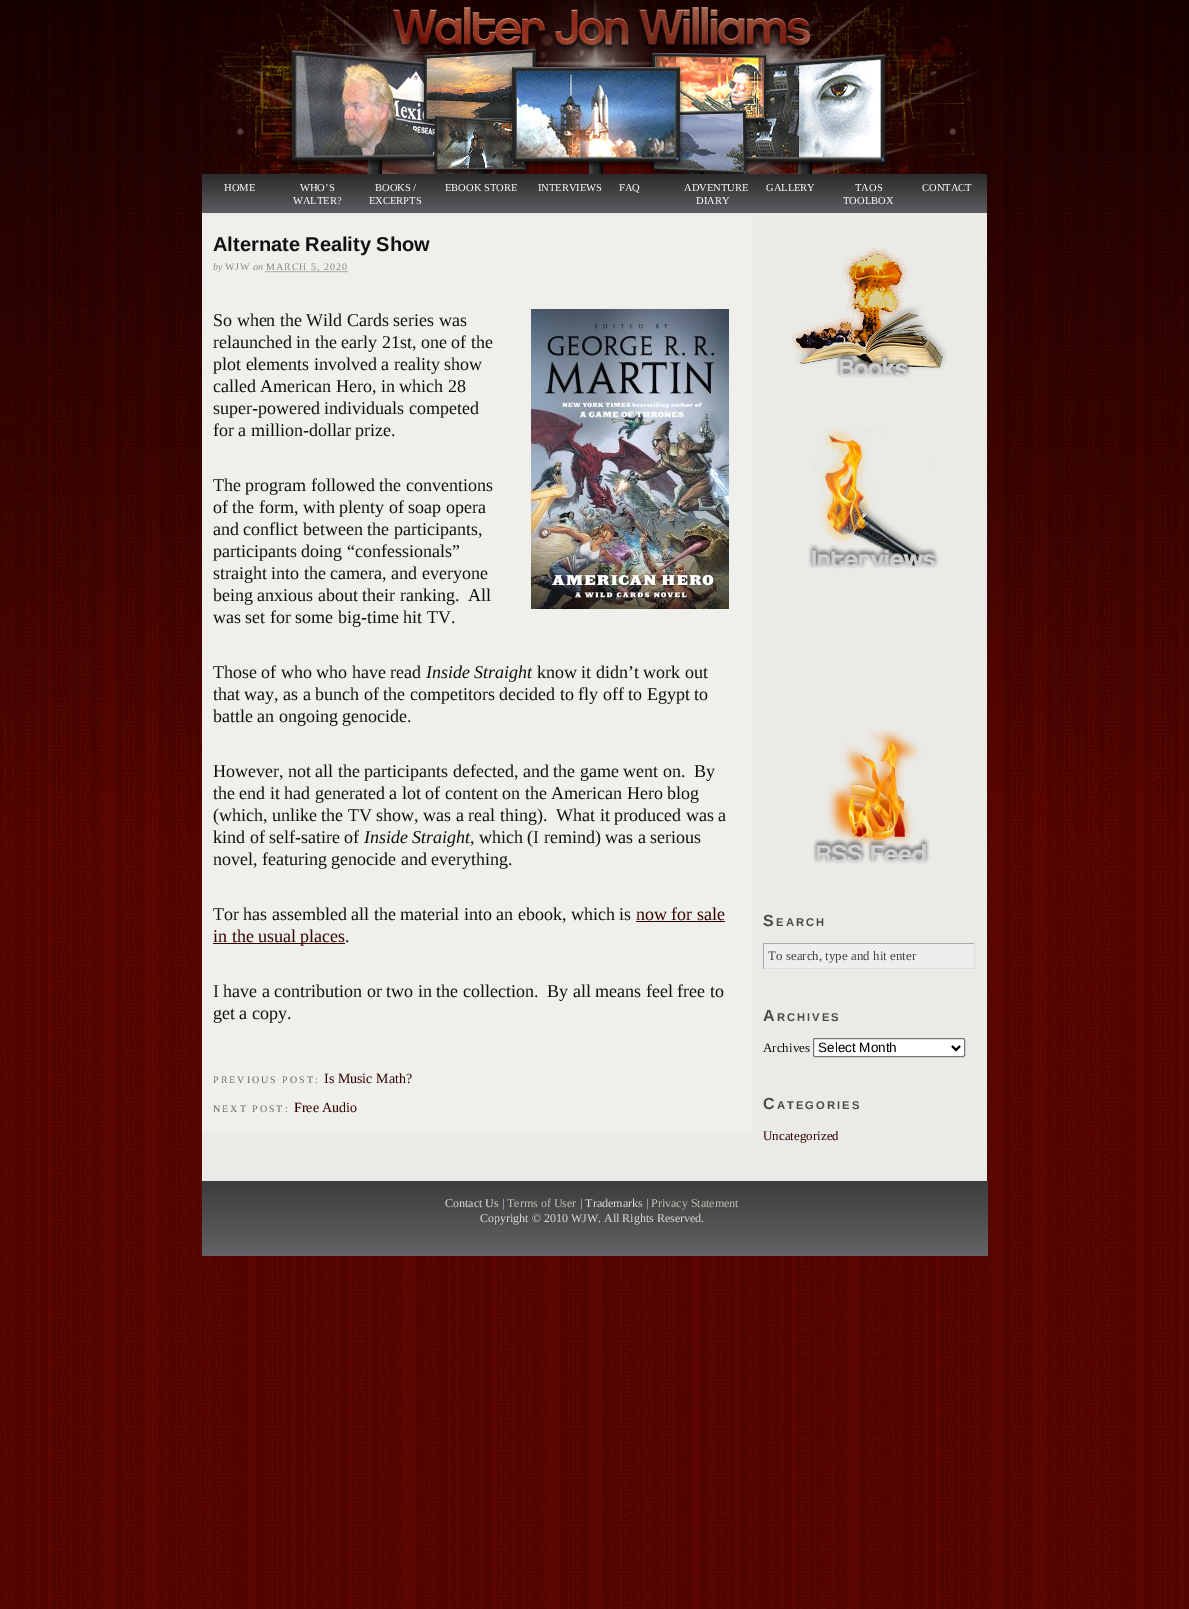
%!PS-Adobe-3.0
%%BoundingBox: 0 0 1189 1609
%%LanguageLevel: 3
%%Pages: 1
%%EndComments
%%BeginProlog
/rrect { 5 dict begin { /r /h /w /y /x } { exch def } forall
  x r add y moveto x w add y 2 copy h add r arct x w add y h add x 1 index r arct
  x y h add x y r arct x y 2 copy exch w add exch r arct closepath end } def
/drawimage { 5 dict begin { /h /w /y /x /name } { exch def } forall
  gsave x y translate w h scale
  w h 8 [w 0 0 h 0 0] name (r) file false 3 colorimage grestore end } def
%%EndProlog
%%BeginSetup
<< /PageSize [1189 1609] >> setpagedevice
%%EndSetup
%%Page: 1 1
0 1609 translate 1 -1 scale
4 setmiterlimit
1 setgray
0 0 1189 1609 rectfill
(images/1.raw) 0 832 1189 777 drawimage
(images/2.raw) 0 0 1189 832 drawimage
(images/3.raw) 202 0 785 174 drawimage
0.918 0.918 0.902 setrgbcolor
202 213 785 968 rectfill
(images/4.raw) 202 174 785 39 drawimage
0.937 0.937 0.922 setrgbcolor
202 216 550 915 rectfill
0.533 setgray
[1 1] 0 setdash
newpath 265.5 271.5 moveto 348 271.5 lineto stroke
(images/5.raw) 531 309 198 300 drawimage
0.2 0.012 0 setrgbcolor
636 921 89 1 rectfill
213 943 132 1 rectfill
(images/6.raw) 791 247 156 131 drawimage
(images/7.raw) 808 428 131 141 drawimage
(images/8.raw) 813 729 117 135 drawimage
0.933 setgray
764 944 210 24 rectfill
0.667 setgray
763 943 212 1 rectfill
0.867 setgray
974 943 1 26 rectfill
763 968 212 1 rectfill
0.667 setgray
763 943 1 26 rectfill
1 setgray
813.5 1038.5 151 18 1.5 rrect gsave fill grestore
0.463 setgray
[] 0 setdash
stroke
0 setgray
2 setlinewidth
newpath 952 1046 moveto 956 1050 lineto 960 1046 lineto stroke
(images/9.raw) 202 1181 786 75 drawimage
/LiberationSerif-Regular [10.5 0 0 -10.5 0 0] selectfont
1 setgray
224 191 moveto (HOME) show
300 191 moveto (WHO’S) show
293 204 moveto (WALTER?) show
375 191 moveto (BOOKS /) show
369 204 moveto (EXCERPTS) show
445 191 moveto (EBOOK STORE) show
538 191 moveto (INTERVIEWS) show
619 191 moveto (FAQ) show
684 191 moveto (ADVENTURE) show
696 204 moveto (DIARY) show
766 191 moveto (GALLERY) show
855 191 moveto (TAOS) show
843 204 moveto (TOOLBOX) show
922 191 moveto (CONTACT) show
/LiberationSans-Bold [20 0 0 -20 0 0] selectfont
0.067 setgray
213 251 moveto (Alternate Reality Show) show
/LiberationSerif-Italic [10 0 0 -10 0 0] selectfont
0.533 setgray
213 270 moveto (by) show
/LiberationSerif-Regular [10 0 0 -10 0 0] selectfont
225 270 moveto 1 0 (WJW) ashow
/LiberationSerif-Italic [10 0 0 -10 0 0] selectfont
253 270 moveto (on) show
/LiberationSerif-Regular [10 0 0 -10 0 0] selectfont
266 270 moveto 1 0 (MARCH 5, 2020) ashow
/LiberationSerif-Regular [18 0 0 -18 0 0] selectfont
0.067 setgray
213 326 moveto (So when the Wild Cards series was) show
213 348 moveto (relaunched in the early 21st, one of the) show
213 370 moveto (plot elements involved a reality show) show
213 392 moveto (called American Hero, in which 28) show
213 414 moveto (super-powered individuals competed) show
213 436 moveto (for a million-dollar prize.) show
213 491 moveto (The program followed the conventions) show
213 513 moveto (of the form, with plenty of soap opera) show
213 535 moveto (and conflict between the participants,) show
213 557 moveto (participants doing “confessionals”) show
213 579 moveto (straight into the camera, and everyone) show
213 601 moveto (being anxious about their ranking.  All) show
213 623 moveto (was set for some big-time hit TV.) show
213 678 moveto (Those of who who have read) show
/LiberationSerif-Italic [18 0 0 -18 0 0] selectfont
426 678 moveto (Inside Straight) show
/LiberationSerif-Regular [18 0 0 -18 0 0] selectfont
537 678 moveto (know it didn’t work out) show
213 700 moveto (that way, as a bunch of the competitors decided to fly off to Egypt to) show
213 722 moveto (battle an ongoing genocide.) show
213 777 moveto (However, not all the participants defected, and the game went on.  By) show
213 799 moveto (the end it had generated a lot of content on the American Hero blog) show
213 821 moveto (\(which, unlike the TV show, was a real thing\).  What it produced was a) show
213 843 moveto (kind of self-satire of) show
/LiberationSerif-Italic [18 0 0 -18 0 0] selectfont
364 843 moveto (Inside Straight) show
/LiberationSerif-Regular [18 0 0 -18 0 0] selectfont
470 843 moveto (, which \(I remind\) was a serious) show
213 865 moveto (novel, featuring genocide and everything.) show
213 920 moveto (Tor has assembled all the material into an ebook, which is) show
0.2 0.012 0 setrgbcolor
636 920 moveto (now for sale) show
213 942 moveto (in the usual places) show
0.067 setgray
345 942 moveto (.) show
213 997 moveto (I have a contribution or two in the collection.  By all means feel free to) show
213 1019 moveto (get a copy.) show
/LiberationSerif-Regular [10 0 0 -10 0 0] selectfont
0.4 setgray
213 1083 moveto 2 0 (PREVIOUS POST:) ashow
/LiberationSerif-Regular [14 0 0 -14 0 0] selectfont
0.2 0.012 0 setrgbcolor
324 1083 moveto (Is Music Math?) show
/LiberationSerif-Regular [10 0 0 -10 0 0] selectfont
0.4 setgray
213 1112 moveto 2 0 (NEXT POST:) ashow
/LiberationSerif-Regular [14 0 0 -14 0 0] selectfont
0.2 0.012 0 setrgbcolor
294 1112 moveto (Free Audio) show
/LiberationSans-Bold [16 0 0 -16 0 0] selectfont
0.29 setgray
763 926 moveto 2 0 (S) ashow
/LiberationSans-Bold [11.25 0 0 -11.25 0 0] selectfont
776 926 moveto 2 0 (EARCH) ashow
/LiberationSerif-Regular [13 0 0 -13 0 0] selectfont
0.267 setgray
768 960 moveto (To search, type and hit enter) show
/LiberationSans-Bold [16 0 0 -16 0 0] selectfont
0.29 setgray
763 1021 moveto 2 0 (A) ashow
/LiberationSans-Bold [11.25 0 0 -11.25 0 0] selectfont
777 1021 moveto 2 0 (RCHIVES) ashow
/LiberationSerif-Regular [13 0 0 -13 0 0] selectfont
0.067 setgray
763 1052 moveto (Archives) show
/LiberationSans-Regular [13.5 0 0 -13.5 0 0] selectfont
0 setgray
818 1052 moveto (Select Month) show
/LiberationSans-Bold [16 0 0 -16 0 0] selectfont
0.29 setgray
763 1109 moveto 2 0 (C) ashow
/LiberationSans-Bold [11.25 0 0 -11.25 0 0] selectfont
777 1109 moveto 2 0 (ATEGORIES) ashow
/LiberationSerif-Regular [13 0 0 -13 0 0] selectfont
0.2 0.012 0 setrgbcolor
763 1140 moveto (Uncategorized) show
/LiberationSerif-Regular [12 0 0 -12 0 0] selectfont
0.855 0.859 0.824 setrgbcolor
445 1207 moveto (Contact Us |) show
0.749 0.749 0.69 setrgbcolor
507 1207 moveto (Terms of User) show
0.855 0.859 0.824 setrgbcolor
580 1207 moveto (| Trademarks |) show
0.749 0.749 0.69 setrgbcolor
651 1207 moveto (Privacy Statement) show
0.855 0.859 0.824 setrgbcolor
480 1222 moveto (Copyright © 2010 WJW. All Rights Reserved.) show
showpage
%%EOF
